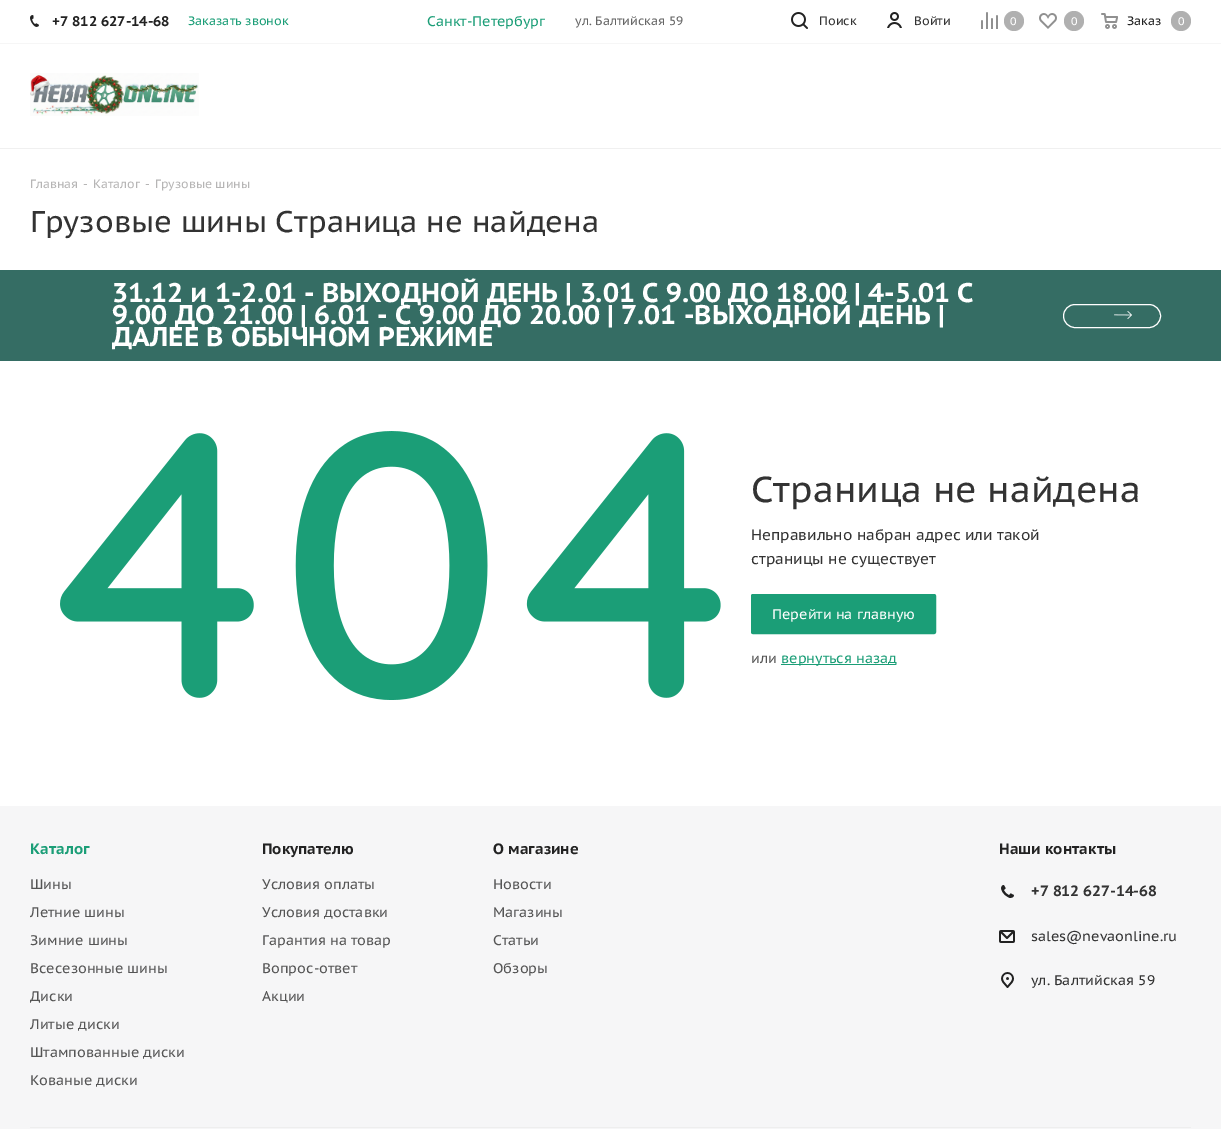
%!PS-Adobe-3.0
%%BoundingBox: 0 0 1221 1129
%%LanguageLevel: 3
%%Pages: 1
%%EndComments
%%BeginProlog
/rrect { 5 dict begin { /r /h /w /y /x } { exch def } forall
  x r add y moveto x w add y 2 copy h add r arct x w add y h add x 1 index r arct
  x y h add x y r arct x y 2 copy exch w add exch r arct closepath end } def
/drawimage { 5 dict begin { /h /w /y /x /name } { exch def } forall
  gsave x y translate w h scale
  w h 8 [w 0 0 h 0 0] name (r) file false 3 colorimage grestore end } def
%%EndProlog
%%BeginSetup
<< /PageSize [1221 1129] >> setpagedevice
%%EndSetup
%%Page: 1 1
0 1129 translate 1 -1 scale
4 setmiterlimit
1 setgray
0 0 1221 1129 rectfill
0.965 setgray
0 43 1221 1 rectfill
(images/1.raw) 30 15 9 12 drawimage
(images/2.raw) 791 12 17 17 drawimage
(images/3.raw) 887 12 15 16 drawimage
(images/4.raw) 981 12 17 17 drawimage
0.69 setgray
newpath 1014 21 10 0 360 arc closepath fill
(images/5.raw) 1039 13 18 16 drawimage
newpath 1074 21 10 0 360 arc closepath fill
(images/6.raw) 1101 13 17 16 drawimage
newpath 1181 21 10 0 360 arc closepath fill
(images/7.raw) 30 73 169 43 drawimage
0.941 setgray
0 148 1221 1 rectfill
0.208 0.427 0.392 setrgbcolor
0 270 1221 91 rectfill
1 setgray
1063.5 304.5 97 23 11.5 rrect stroke
(images/8.raw) 1114 311 18 8 drawimage
(images/9.raw) 60 431 661 269 drawimage
0.106 0.62 0.467 setrgbcolor
751.5 594.5 184 39 1.5 rrect gsave fill grestore
stroke
781 664 115 1 rectfill
0.965 0.965 0.969 setrgbcolor
0 806 1221 323 rectfill
(images/10.raw) 1001 885 13 13 drawimage
(images/11.raw) 999 930 16 13 drawimage
(images/12.raw) 1001 972 13 16 drawimage
0.933 setgray
30 1127 1161 1 rectfill
/PTSansCaption-Bold [14 0 0 -14 0 0] selectfont
0.133 setgray
52 26 moveto (+7 812 627-14-68) show
/PTSansCaption-Regular [12.25 0 0 -12.25 0 0] selectfont
0.106 0.62 0.467 setrgbcolor
188 25 moveto (Заказать звонок) show
/PTSansCaption-Regular [14 0 0 -14 0 0] selectfont
427 26 moveto (Санкт-Петербург) show
/PTSansCaption-Regular [12.25 0 0 -12.25 0 0] selectfont
0.4 setgray
575 25 moveto (ул. Балтийская 59) show
0.2 setgray
819 25 moveto (Поиск) show
914 25 moveto (Войти) show
/PTSansCaption-Regular [11 0 0 -11 0 0] selectfont
1 setgray
1010 25 moveto (0) show
1071 25 moveto (0) show
/PTSansCaption-Regular [12.25 0 0 -12.25 0 0] selectfont
0.133 setgray
1127 25 moveto (Заказ) show
/PTSansCaption-Regular [11 0 0 -11 0 0] selectfont
1 setgray
1178 25 moveto (0) show
/PTSansCaption-Regular [12 0 0 -12 0 0] selectfont
0.714 0.71 0.71 setrgbcolor
30 188 moveto (Главная) show
83 188 moveto (-) show
93 188 moveto (Каталог) show
145 188 moveto (-) show
155 188 moveto (Грузовые шины) show
/PTSansCaption-Regular [29.9 0 0 -29.9 0 0] selectfont
0.2 setgray
30 232 moveto (Грузовые шины Страница не найдена) show
/PTSansCaption-Bold [27 0 0 -27 0 0] selectfont
1 setgray
112 302 moveto (31.12 и 1-2.01 - ВЫХОДНОЙ ДЕНЬ | 3.01 С 9.00 ДО 18.00 | 4-5.01 С) show
112 324 moveto (9.00 ДО 21.00 | 6.01 - С 9.00 ДО 20.00 | 7.01 -ВЫХОДНОЙ ДЕНЬ |) show
112 346 moveto (ДАЛЕЕ В ОБЫЧНОМ РЕЖИМЕ) show
/PTSansCaption-Regular [36 0 0 -36 0 0] selectfont
0.2 setgray
751 502 moveto (Страница не найдена) show
/PTSansCaption-Regular [15 0 0 -15 0 0] selectfont
751 540 moveto (Неправильно набран адрес или такой) show
751 564 moveto (страницы не существует) show
/PTSansCaption-Regular [14 0 0 -14 0 0] selectfont
1 setgray
772 619 moveto (Перейти на главную) show
0.333 setgray
751 663 moveto (или) show
0.106 0.62 0.467 setrgbcolor
781 663 moveto (вернуться назад) show
/PTSansCaption-Bold [15 0 0 -15 0 0] selectfont
30 854 moveto (Каталог) show
/PTSansCaption-Regular [14 0 0 -14 0 0] selectfont
0.333 setgray
30 889 moveto (Шины) show
30 917 moveto (Летние шины) show
30 945 moveto (Зимние шины) show
30 973 moveto (Всесезонные шины) show
30 1001 moveto (Диски) show
30 1029 moveto (Литые диски) show
30 1057 moveto (Штампованные диски) show
30 1085 moveto (Кованые диски) show
/PTSansCaption-Bold [15 0 0 -15 0 0] selectfont
0.133 setgray
262 854 moveto (Покупателю) show
/PTSansCaption-Regular [14 0 0 -14 0 0] selectfont
0.333 setgray
262 889 moveto (Условия оплаты) show
262 917 moveto (Условия доставки) show
262 945 moveto (Гарантия на товар) show
262 973 moveto (Вопрос-ответ) show
262 1001 moveto (Акции) show
/PTSansCaption-Bold [15 0 0 -15 0 0] selectfont
0.133 setgray
493 854 moveto (О магазине) show
/PTSansCaption-Regular [14 0 0 -14 0 0] selectfont
0.333 setgray
493 889 moveto (Новости) show
493 917 moveto (Магазины) show
493 945 moveto (Статьи) show
493 973 moveto (Обзоры) show
/PTSansCaption-Bold [15 0 0 -15 0 0] selectfont
0.133 setgray
999 854 moveto (Наши контакты) show
0.2 setgray
1031 896 moveto (+7 812 627-14-68) show
/PTSansCaption-Regular [14 0 0 -14 0 0] selectfont
1031 941 moveto (sales@nevaonline.ru) show
1031 985 moveto (ул. Балтийская 59) show
showpage
%%EOF
